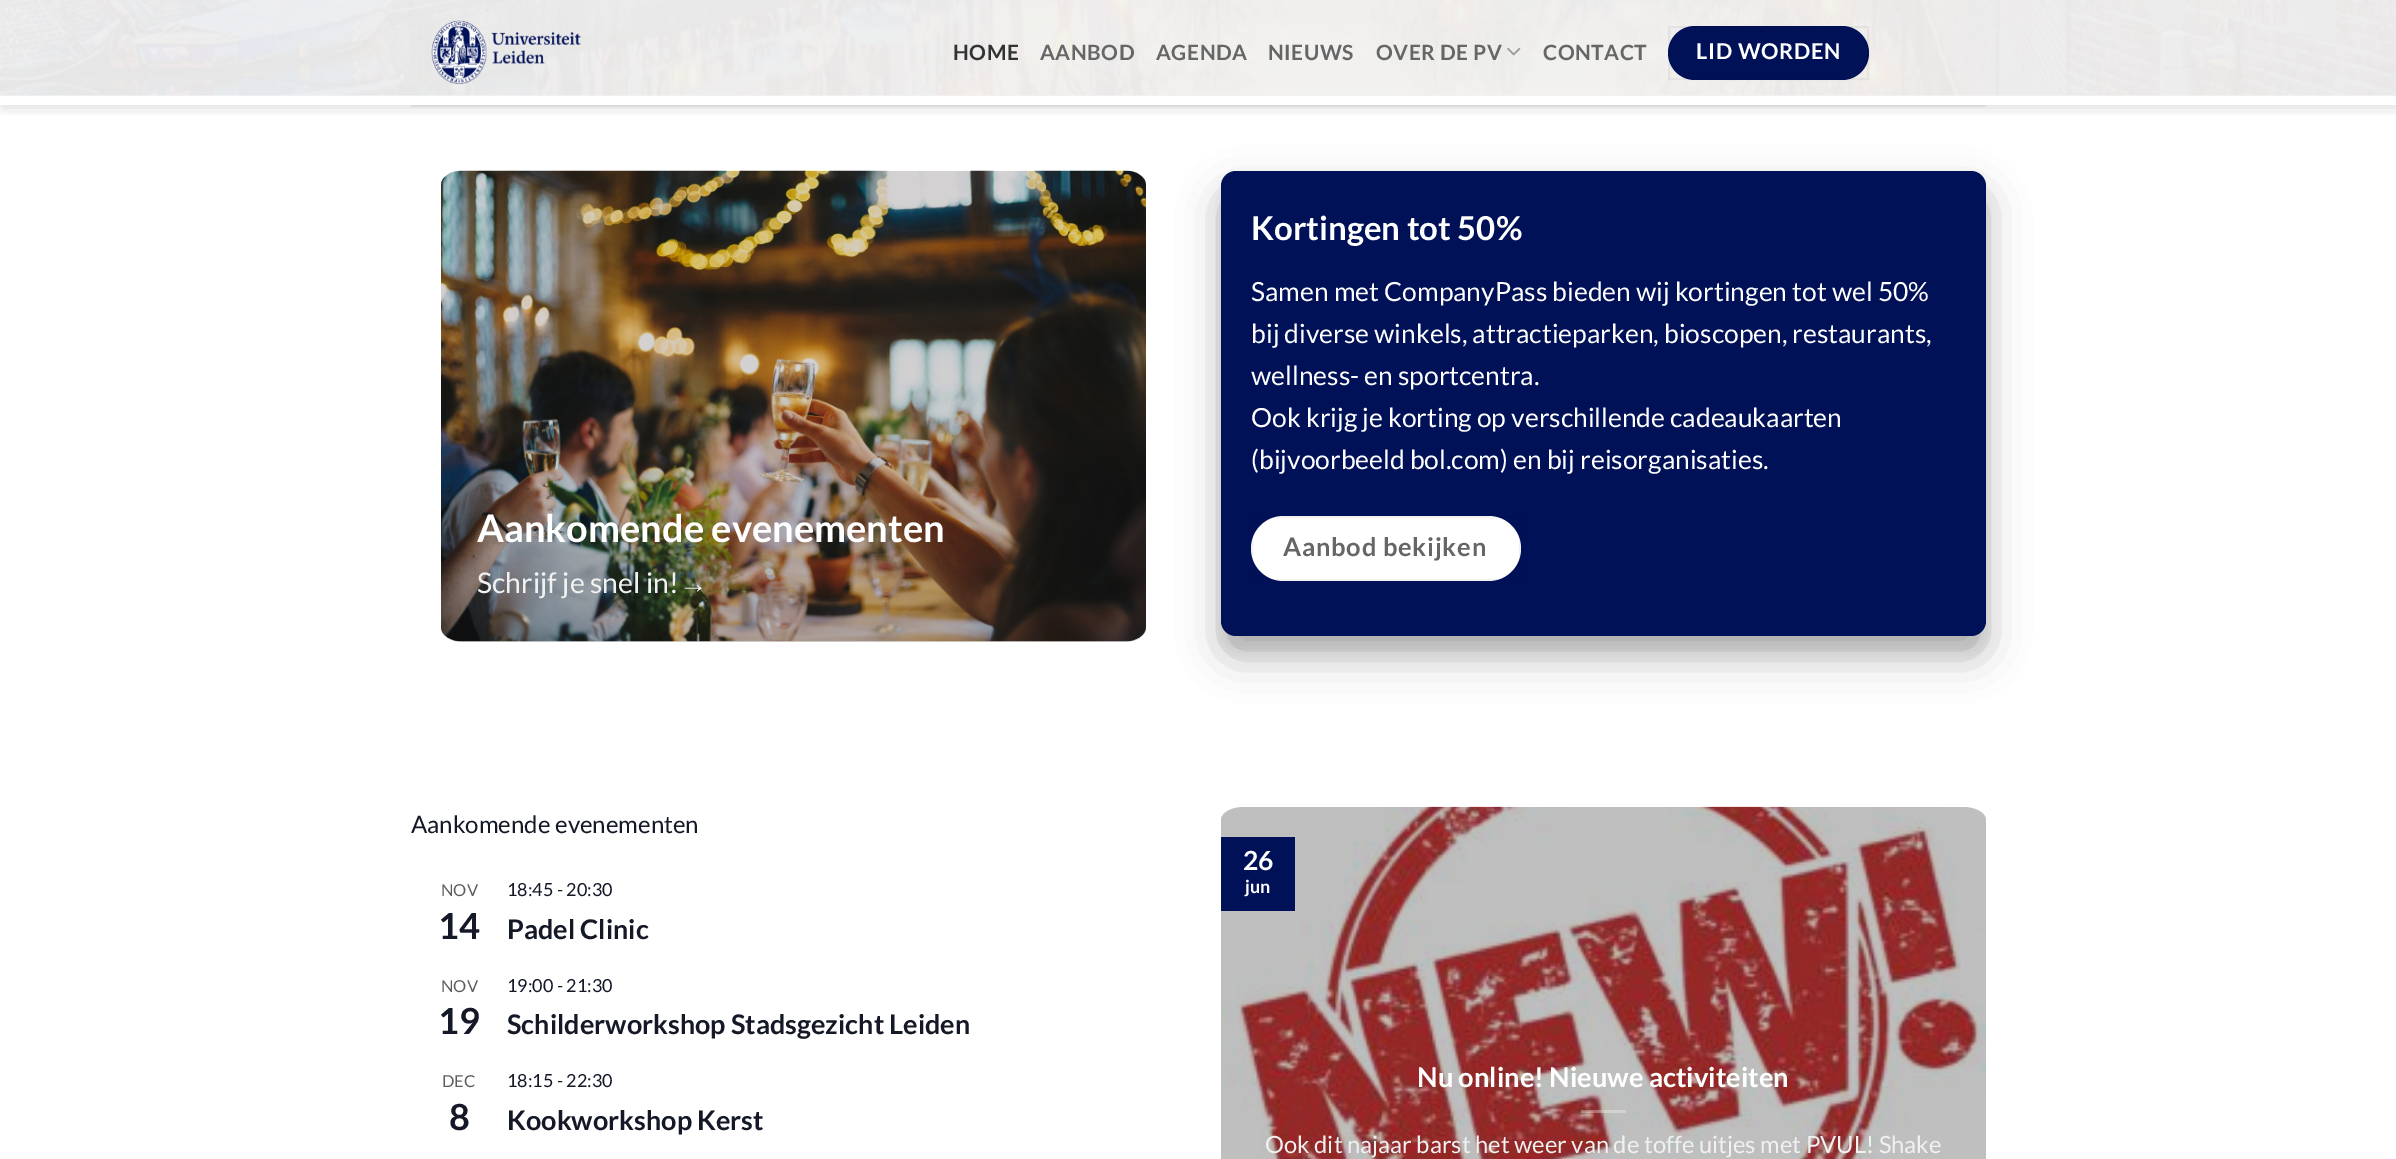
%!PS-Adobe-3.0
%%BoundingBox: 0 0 2396 1159
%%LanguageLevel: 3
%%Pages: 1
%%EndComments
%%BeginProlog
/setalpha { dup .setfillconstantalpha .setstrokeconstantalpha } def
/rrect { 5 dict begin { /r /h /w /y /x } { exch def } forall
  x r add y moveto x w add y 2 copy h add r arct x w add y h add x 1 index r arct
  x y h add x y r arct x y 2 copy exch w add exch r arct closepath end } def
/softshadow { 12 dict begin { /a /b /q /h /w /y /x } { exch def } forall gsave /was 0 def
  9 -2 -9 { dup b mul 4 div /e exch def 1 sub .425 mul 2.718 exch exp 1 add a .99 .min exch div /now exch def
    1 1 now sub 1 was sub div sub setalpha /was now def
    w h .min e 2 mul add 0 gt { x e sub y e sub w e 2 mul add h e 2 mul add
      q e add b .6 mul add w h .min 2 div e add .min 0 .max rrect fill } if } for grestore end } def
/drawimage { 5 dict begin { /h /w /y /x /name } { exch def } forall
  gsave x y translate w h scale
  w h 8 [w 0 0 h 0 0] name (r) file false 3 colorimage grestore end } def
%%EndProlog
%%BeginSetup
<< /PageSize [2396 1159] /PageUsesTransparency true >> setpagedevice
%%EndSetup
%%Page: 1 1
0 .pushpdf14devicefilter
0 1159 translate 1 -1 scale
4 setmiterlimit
1 setgray
0 0 2396 1159 rectfill
0.949 setgray
0 95 2396 1 rectfill
(images/3.raw) 0 0 2396 96 drawimage
gsave
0 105 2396 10 rectclip
0 setgray
2 2 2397 105 0 7.5 0.15 softshadow
grestore
(images/1.raw) 431 20 150 65 drawimage
(images/2.raw) 1507 47 14 9 drawimage
0 0.067 0.345 setrgbcolor
1668 26 201 54 27 rrect fill
0.05 setalpha
0 setgray
2 setlinewidth
1669 27 199 52 rectstroke
1 setalpha
0.855 setgray
411 105 1575 2 rectfill
(images/4.raw) 441 170 705 472 drawimage
0.15 setalpha
0 setgray
newpath 462 171 moveto 450 171 441 177 441 185 curveto 441 628 lineto 441 636 450 642 462 642 curveto 1125 642 lineto 1137 642 1146 636 1146 628 curveto 1146 185 lineto 1146 177 1137 171 1125 171 curveto closepath fill
1 setalpha
1221 186 765 465 15 7.5 0.1 softshadow
1221 192 765 465 15 21 0.25 softshadow
0 0.067 0.345 setrgbcolor
1221 171 765 465 15 rrect fill
1 setgray
1251 516 270 65 32.5 rrect fill
0.05 setalpha
0 setgray
1252 517 268 63 rectstroke
1 setalpha
(images/5.raw) 1221 806 765 353 drawimage
0.25 setalpha
newpath 1244 807 moveto 1231 807 1221 813 1221 820 curveto 1221 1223 lineto 1221 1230 1231 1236 1244 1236 curveto 1963 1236 lineto 1976 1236 1986 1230 1986 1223 curveto 1986 820 lineto 1986 813 1976 807 1963 807 curveto closepath fill
1 setalpha
0 0.067 0.345 setrgbcolor
1221 837 74 74 rectfill
0.3 setalpha
1 setgray
1581 1110 45 3 rectfill
/Lato-Bold [21 0 0 -21 0 0] selectfont
1 setalpha
0.2 setgray
953 60 moveto 0.5 0 (HOME) ashow
0.4 setgray
1040 60 moveto 0.5 0 (AANBOD) ashow
1156 60 moveto 0.5 0 (AGENDA) ashow
1268 60 moveto 0.5 0 (NIEUWS) ashow
1376 60 moveto 0.5 0 (OVER DE PV) ashow
1543 60 moveto 0.5 0 (CONTACT) ashow
/Lato-Bold [21.75 0 0 -21.75 0 0] selectfont
1 setgray
1696 59 moveto 0.75 0 (LID WORDEN) ashow
/Lato-Bold [38 0 0 -38 0 0] selectfont
477 542 moveto (Aankomende evenementen) show
/Lato-Regular [28.5 0 0 -28.5 0 0] selectfont
0.945 setgray
477 593 moveto (Schrijf je snel in!) show
/LiberationSans-Regular [28.5 0 0 -28.5 0 0] selectfont
679 593 moveto (→) show
/Lato-Bold [33 0 0 -33 0 0] selectfont
1 setgray
1251 240 moveto (Kortingen tot 50%) show
/Lato-Regular [26.4 0 0 -26.4 0 0] selectfont
1251 301 moveto (Samen met CompanyPass bieden wij kortingen tot wel 50%) show
1251 343 moveto (bij diverse winkels, attractieparken, bioscopen, restaurants,) show
1251 385 moveto (wellness- en sportcentra.) show
1251 427 moveto (Ook krijg je korting op verschillende cadeaukaarten) show
1251 469 moveto (\(bijvoorbeeld bol.com\) en bij reisorganisaties.) show
/Lato-Bold [25.5 0 0 -25.5 0 0] selectfont
0.4 setgray
1283 556 moveto 0.75 0 (Aanbod bekijken) ashow
/Lato-Regular [24 0 0 -24 0 0] selectfont
0.078 0.094 0.153 setrgbcolor
411 833 moveto (Aankomende evenementen) show
/Lato-Regular [16.5 0 0 -16.5 0 0] selectfont
0.365 setgray
441 896 moveto (NOV) show
/Lato-Bold [36 0 0 -36 0 0] selectfont
0.078 0.094 0.153 setrgbcolor
438 939 moveto (14) show
/Lato-Regular [18 0 0 -18 0 0] selectfont
507 896 moveto (18:45 - 20:30) show
/Lato-Bold [27 0 0 -27 0 0] selectfont
507 939 moveto (Padel Clinic) show
/Lato-Regular [16.5 0 0 -16.5 0 0] selectfont
0.365 setgray
441 992 moveto (NOV) show
/Lato-Bold [36 0 0 -36 0 0] selectfont
0.078 0.094 0.153 setrgbcolor
438 1034 moveto (19) show
/Lato-Regular [18 0 0 -18 0 0] selectfont
507 992 moveto (19:00 - 21:30) show
/Lato-Bold [27 0 0 -27 0 0] selectfont
507 1034 moveto (Schilderworkshop Stadsgezicht Leiden) show
/Lato-Regular [16.5 0 0 -16.5 0 0] selectfont
0.365 setgray
442 1087 moveto (DEC) show
/Lato-Bold [36 0 0 -36 0 0] selectfont
0.078 0.094 0.153 setrgbcolor
449 1130 moveto (8) show
/Lato-Regular [18 0 0 -18 0 0] selectfont
507 1087 moveto (18:15 - 22:30) show
/Lato-Bold [27 0 0 -27 0 0] selectfont
507 1130 moveto (Kookworkshop Kerst) show
/Lato-Bold [26.4 0 0 -26.4 0 0] selectfont
1 setgray
1243 870 moveto (26) show
/Lato-Bold [18 0 0 -18 0 0] selectfont
1245 893 moveto (jun) show
/Lato-Bold [27.25 0 0 -27.25 0 0] selectfont
1417 1087 moveto (Nu online! Nieuwe activiteiten) show
/Lato-Regular [23.75 0 0 -23.75 0 0] selectfont
0.945 setgray
1265 1153 moveto (Ook dit najaar barst het weer van de toffe uitjes met PVUL! Shake) show
.poppdf14devicefilter showpage
%%EOF
